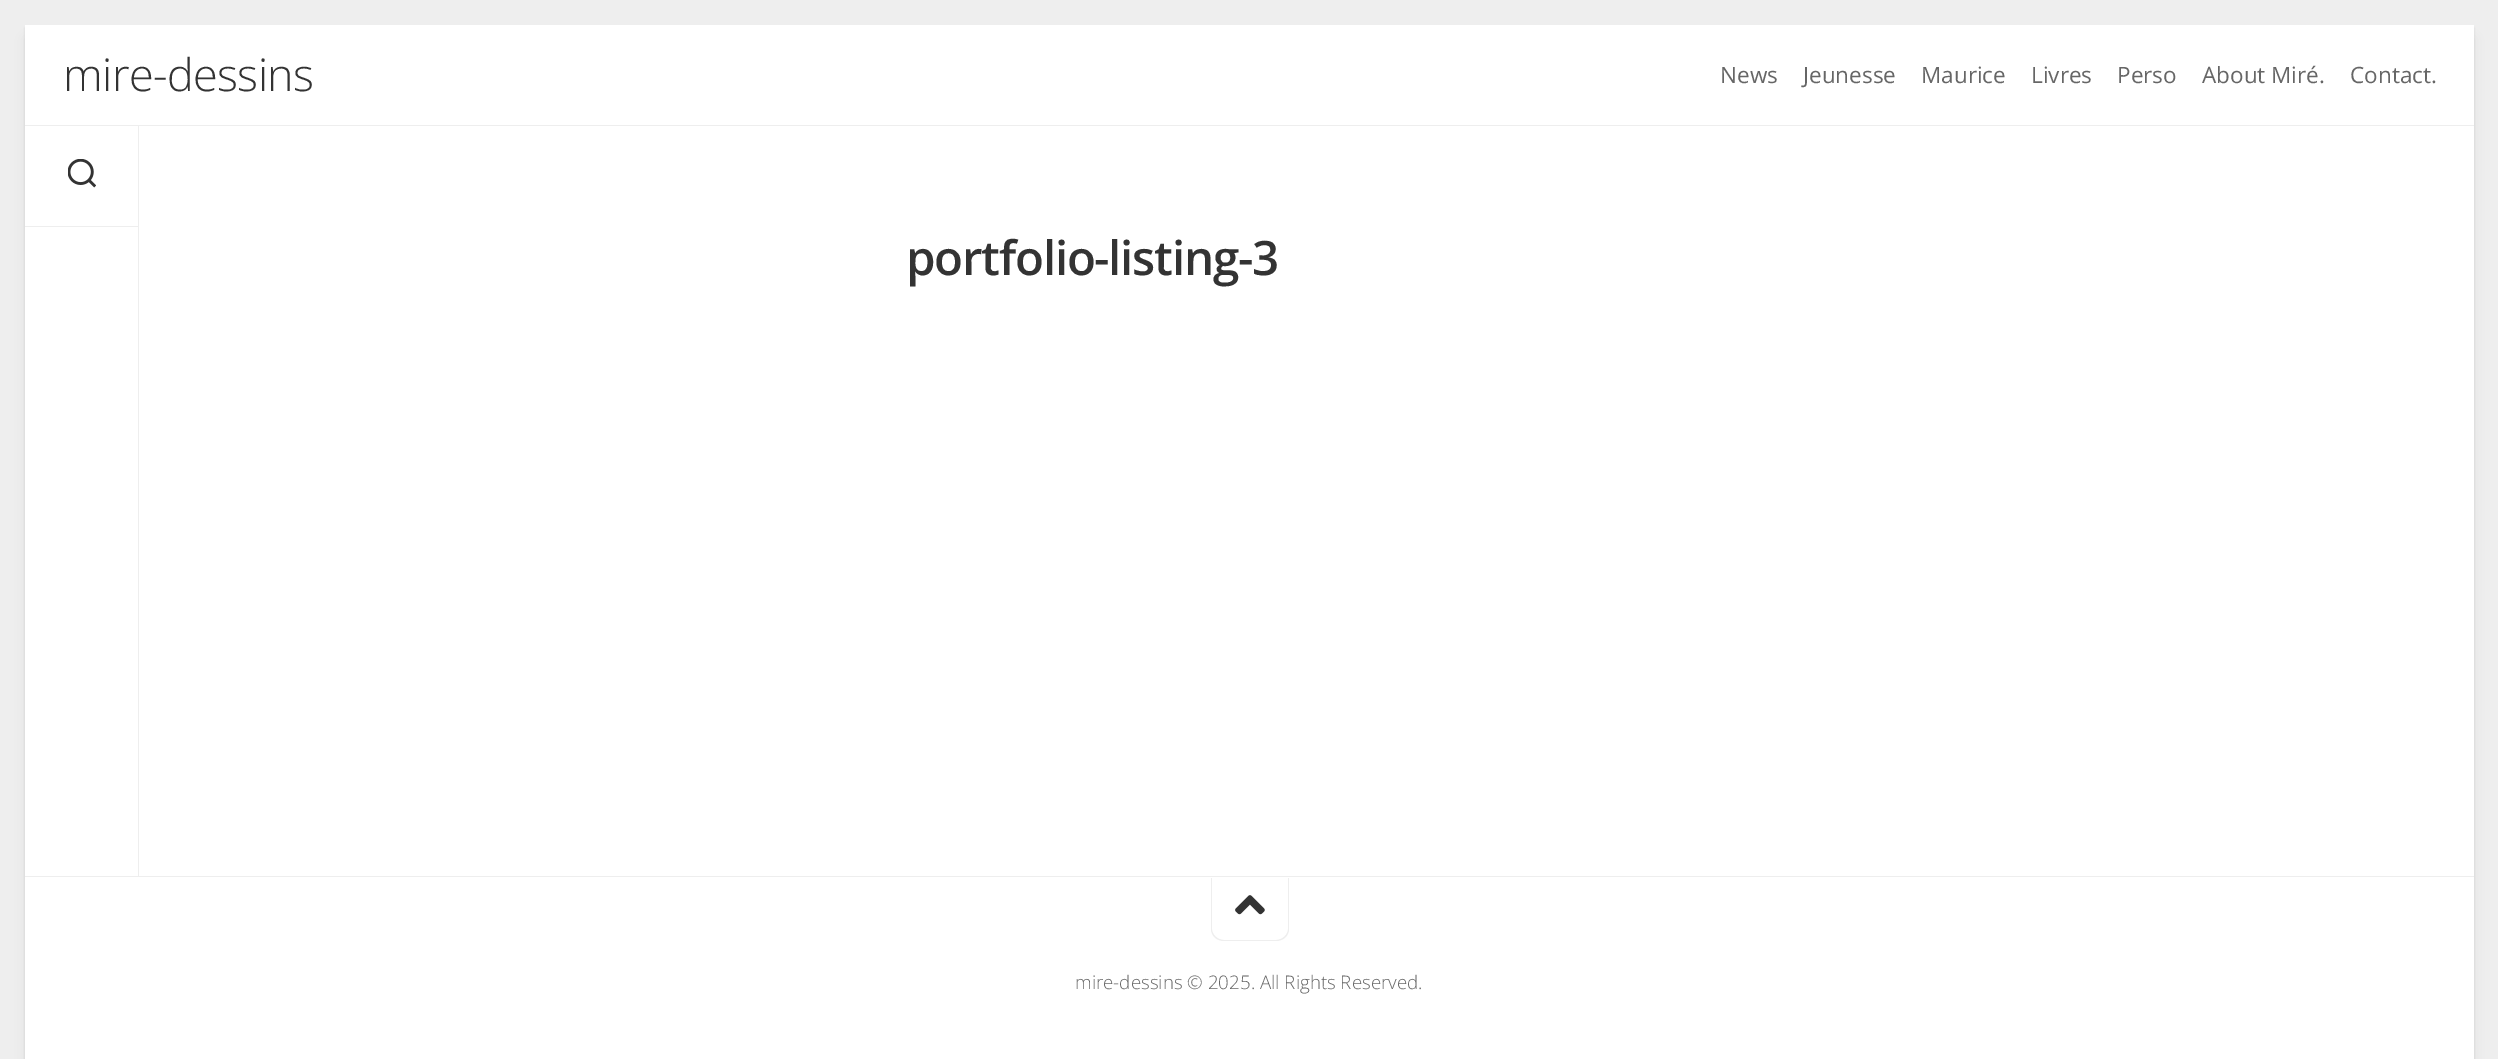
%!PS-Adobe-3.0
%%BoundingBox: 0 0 2498 1059
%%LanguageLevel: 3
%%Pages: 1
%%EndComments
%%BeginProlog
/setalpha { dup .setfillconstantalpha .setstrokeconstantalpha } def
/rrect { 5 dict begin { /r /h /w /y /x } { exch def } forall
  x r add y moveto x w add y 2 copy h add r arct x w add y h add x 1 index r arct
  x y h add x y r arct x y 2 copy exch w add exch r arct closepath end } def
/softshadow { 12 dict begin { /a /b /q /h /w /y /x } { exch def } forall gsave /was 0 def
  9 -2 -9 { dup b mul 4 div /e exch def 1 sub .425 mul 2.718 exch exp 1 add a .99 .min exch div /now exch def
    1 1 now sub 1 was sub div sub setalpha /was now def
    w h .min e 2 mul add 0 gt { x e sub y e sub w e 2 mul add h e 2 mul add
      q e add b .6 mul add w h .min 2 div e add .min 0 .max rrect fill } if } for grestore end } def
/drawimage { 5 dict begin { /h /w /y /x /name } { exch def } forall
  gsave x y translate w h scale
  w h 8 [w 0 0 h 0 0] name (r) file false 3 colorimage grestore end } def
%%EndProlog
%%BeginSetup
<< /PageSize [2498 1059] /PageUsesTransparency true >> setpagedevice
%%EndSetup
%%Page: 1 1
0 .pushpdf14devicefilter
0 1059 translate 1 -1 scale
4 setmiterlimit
0.933 setgray
0 0 2498 1059 rectfill
0 setgray
25 28 2449 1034 0 1 0.1 softshadow
25 38 2449 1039 0 6 0.05 softshadow
1 setgray
25 25 2449 1034 rectfill
0.933 setgray
25 125 2449 1 rectfill
138 126 1 750 rectfill
25 226 113 1 rectfill
(images/1.raw) 68 159 28 29 drawimage
25 876 2449 1 rectfill
newpath 1211 878 moveto 1289 878 lineto 1289 929 lineto 1289 936 1283 941 1276 941 curveto 1224 941 lineto 1217 941 1211 936 1211 929 curveto closepath 1212 878 moveto 1288 878 lineto 1288 929 lineto 1288 935 1282 940 1276 940 curveto 1224 940 lineto 1218 940 1212 935 1212 929 curveto closepath eofill
(images/2.raw) 1235 895 30 20 drawimage
/OpenSans-Light [45 0 0 -45 0 0] selectfont
0.2 setgray
63 91 moveto -0.6 0 (mire-dessins) ashow
/OpenSans-Regular [22.5 0 0 -22.5 0 0] selectfont
0.4 setgray
1720 83 moveto (News) show
1803 83 moveto (Jeunesse) show
1921 83 moveto (Maurice) show
2031 83 moveto (Livres) show
2117 83 moveto (Perso) show
2202 83 moveto (About Miré.) show
2350 83 moveto (Contact.) show
/OpenSans-SemiBold [47.5 0 0 -47.5 0 0] selectfont
0.2 setgray
906 275 moveto -1.25 0 (portfolio-listing-3) ashow
/OpenSans-Light [18.75 0 0 -18.75 0 0] selectfont
0.4 setgray
1075 989 moveto (mire-dessins © 2025. All Rights Reserved.) show
.poppdf14devicefilter showpage
%%EOF
